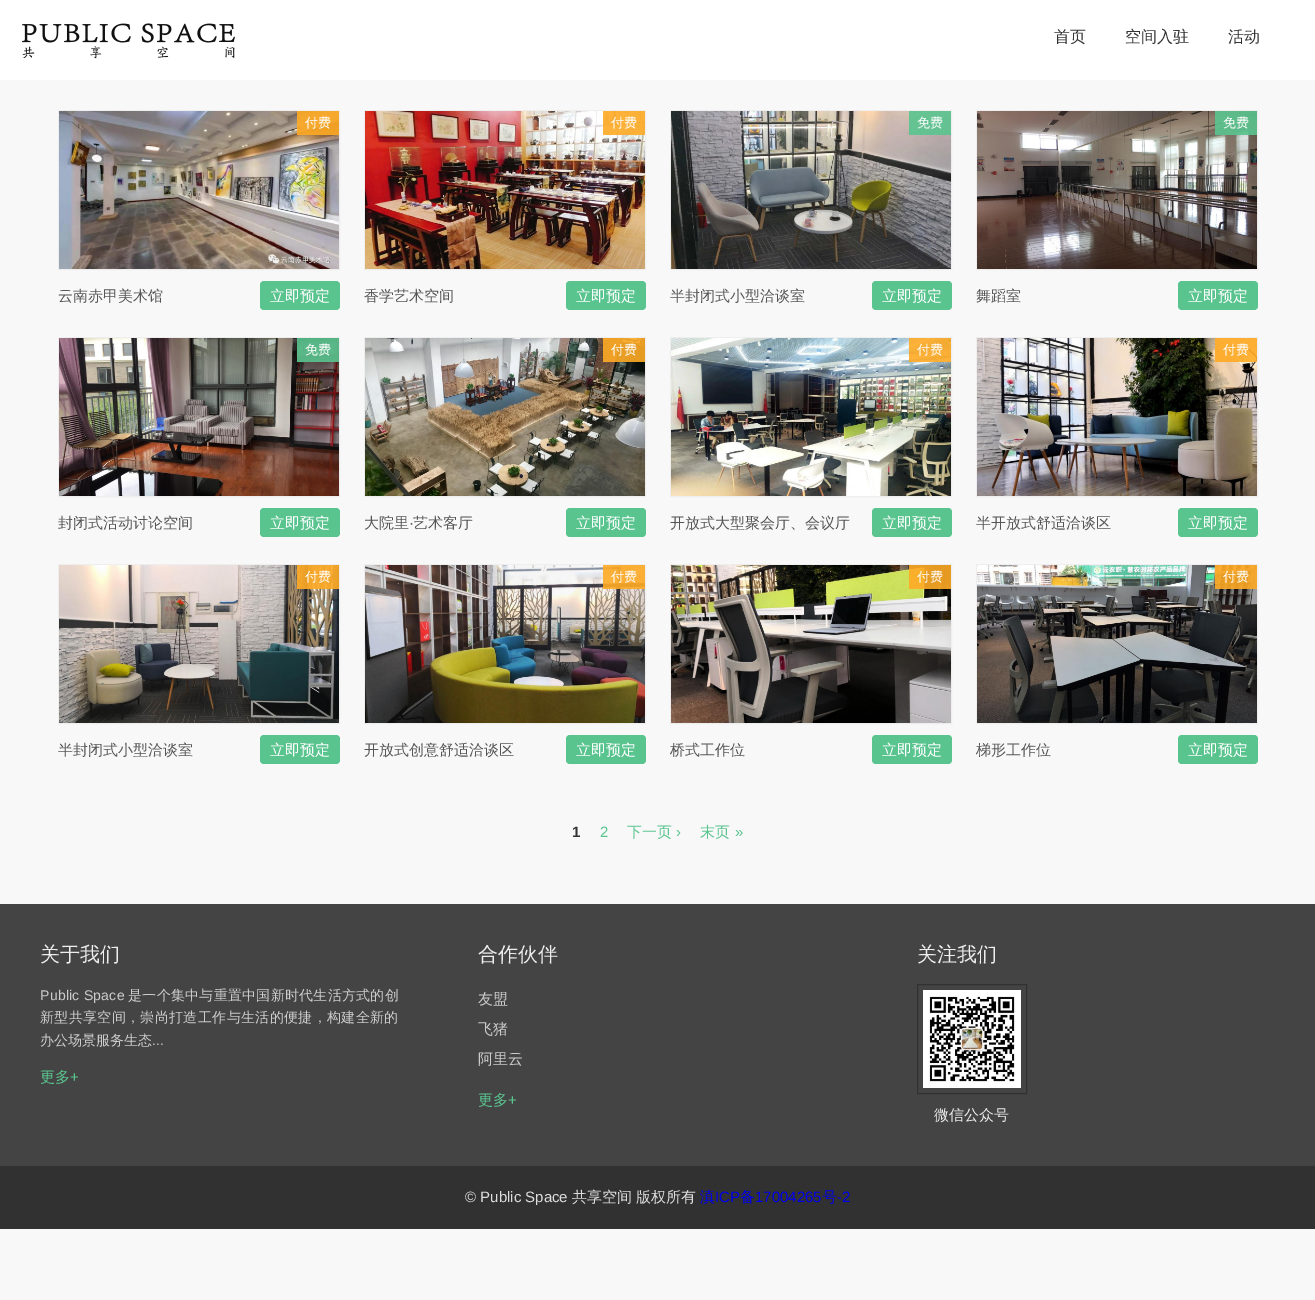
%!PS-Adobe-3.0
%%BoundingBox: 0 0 1315 1300
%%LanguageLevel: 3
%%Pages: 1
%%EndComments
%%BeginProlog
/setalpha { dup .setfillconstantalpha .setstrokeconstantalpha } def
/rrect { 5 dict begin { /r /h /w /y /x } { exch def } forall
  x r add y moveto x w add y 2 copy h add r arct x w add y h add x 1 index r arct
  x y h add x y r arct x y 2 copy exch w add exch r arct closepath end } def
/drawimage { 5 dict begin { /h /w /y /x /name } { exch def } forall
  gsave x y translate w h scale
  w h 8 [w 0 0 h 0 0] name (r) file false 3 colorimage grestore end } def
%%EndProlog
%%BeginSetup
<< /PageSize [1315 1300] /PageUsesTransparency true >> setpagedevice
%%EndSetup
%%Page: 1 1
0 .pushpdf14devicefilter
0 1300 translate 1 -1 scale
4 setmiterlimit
0.973 setgray
0 0 1315 1300 rectfill
1 setgray
0 0 1315 80 rectfill
(images/1.raw) 22 23 213 36 drawimage
0.933 setgray
58.5 110.5 281 159 rectstroke
(images/2.raw) 59 111 280 158 drawimage
0.9 setalpha
0.996 0.667 0.141 setrgbcolor
297 111 42 24 rectfill
1 setalpha
0.353 0.769 0.561 setrgbcolor
260 281 80 29 4 rrect fill
0.933 setgray
364.5 110.5 281 159 rectstroke
(images/3.raw) 365 111 280 158 drawimage
0.9 setalpha
0.996 0.667 0.141 setrgbcolor
603 111 42 24 rectfill
1 setalpha
0.353 0.769 0.561 setrgbcolor
566 281 80 29 4 rrect fill
0.933 setgray
670.5 110.5 281 159 rectstroke
(images/4.raw) 671 111 280 158 drawimage
0.9 setalpha
0.353 0.769 0.561 setrgbcolor
909 111 42 24 rectfill
1 setalpha
872 281 80 29 4 rrect fill
0.933 setgray
976.5 110.5 281 159 rectstroke
(images/5.raw) 977 111 280 158 drawimage
0.9 setalpha
0.353 0.769 0.561 setrgbcolor
1215 111 42 24 rectfill
1 setalpha
1178 281 80 29 4 rrect fill
0.933 setgray
58.5 337.5 281 159 rectstroke
(images/6.raw) 59 338 280 158 drawimage
0.9 setalpha
0.353 0.769 0.561 setrgbcolor
297 338 42 24 rectfill
1 setalpha
260 508 80 29 4 rrect fill
0.933 setgray
364.5 337.5 281 159 rectstroke
(images/7.raw) 365 338 280 158 drawimage
0.9 setalpha
0.996 0.667 0.141 setrgbcolor
603 338 42 24 rectfill
1 setalpha
0.353 0.769 0.561 setrgbcolor
566 508 80 29 4 rrect fill
0.933 setgray
670.5 337.5 281 159 rectstroke
(images/8.raw) 671 338 280 158 drawimage
0.9 setalpha
0.996 0.667 0.141 setrgbcolor
909 338 42 24 rectfill
1 setalpha
0.353 0.769 0.561 setrgbcolor
872 508 80 29 4 rrect fill
0.933 setgray
976.5 337.5 281 159 rectstroke
(images/9.raw) 977 338 280 158 drawimage
0.9 setalpha
0.996 0.667 0.141 setrgbcolor
1215 338 42 24 rectfill
1 setalpha
0.353 0.769 0.561 setrgbcolor
1178 508 80 29 4 rrect fill
0.933 setgray
58.5 564.5 281 159 rectstroke
(images/10.raw) 59 565 280 158 drawimage
0.9 setalpha
0.996 0.667 0.141 setrgbcolor
297 565 42 24 rectfill
1 setalpha
0.353 0.769 0.561 setrgbcolor
260 735 80 29 4 rrect fill
0.933 setgray
364.5 564.5 281 159 rectstroke
(images/11.raw) 365 565 280 158 drawimage
0.9 setalpha
0.996 0.667 0.141 setrgbcolor
603 565 42 24 rectfill
1 setalpha
0.353 0.769 0.561 setrgbcolor
566 735 80 29 4 rrect fill
0.933 setgray
670.5 564.5 281 159 rectstroke
(images/12.raw) 671 565 280 158 drawimage
0.9 setalpha
0.996 0.667 0.141 setrgbcolor
909 565 42 24 rectfill
1 setalpha
0.353 0.769 0.561 setrgbcolor
872 735 80 29 4 rrect fill
0.933 setgray
976.5 564.5 281 159 rectstroke
(images/13.raw) 977 565 280 158 drawimage
0.9 setalpha
0.996 0.667 0.141 setrgbcolor
1215 565 42 24 rectfill
1 setalpha
0.353 0.769 0.561 setrgbcolor
1178 735 80 29 4 rrect fill
0.267 setgray
0 904 1315 262 rectfill
0.192 setgray
917.5 984.5 109 109 rectstroke
(images/14.raw) 923 990 98 98 drawimage
0 1166 1315 63 rectfill
/WenQuanYiZenHei-Medium [16 0 0 -16 0 0] selectfont
0.2 setgray
1054 42 moveto (首页) show
1125 42 moveto (空间入驻) show
1228 42 moveto (活动) show
/WenQuanYiZenHei-Medium [13 0 0 -13 0 0] selectfont
1 setgray
305 127 moveto (付费) show
/WenQuanYiZenHei-Medium [15 0 0 -15 0 0] selectfont
0.333 setgray
58 301 moveto (云南赤甲美术馆) show
1 setgray
270 301 moveto (立即预定) show
/WenQuanYiZenHei-Medium [13 0 0 -13 0 0] selectfont
611 127 moveto (付费) show
/WenQuanYiZenHei-Medium [15 0 0 -15 0 0] selectfont
0.333 setgray
364 301 moveto (香学艺术空间) show
1 setgray
576 301 moveto (立即预定) show
/WenQuanYiZenHei-Medium [13 0 0 -13 0 0] selectfont
917 127 moveto (免费) show
/WenQuanYiZenHei-Medium [15 0 0 -15 0 0] selectfont
0.333 setgray
670 301 moveto (半封闭式小型洽谈室) show
1 setgray
882 301 moveto (立即预定) show
/WenQuanYiZenHei-Medium [13 0 0 -13 0 0] selectfont
1223 127 moveto (免费) show
/WenQuanYiZenHei-Medium [15 0 0 -15 0 0] selectfont
0.333 setgray
976 301 moveto (舞蹈室) show
1 setgray
1188 301 moveto (立即预定) show
/WenQuanYiZenHei-Medium [13 0 0 -13 0 0] selectfont
305 354 moveto (免费) show
/WenQuanYiZenHei-Medium [15 0 0 -15 0 0] selectfont
0.333 setgray
58 528 moveto (封闭式活动讨论空间) show
1 setgray
270 528 moveto (立即预定) show
/WenQuanYiZenHei-Medium [13 0 0 -13 0 0] selectfont
611 354 moveto (付费) show
/WenQuanYiZenHei-Medium [15 0 0 -15 0 0] selectfont
0.333 setgray
364 528 moveto (大院里) show
/LiberationSans-Regular [15 0 0 -15 0 0] selectfont
409 528 moveto (·) show
/WenQuanYiZenHei-Medium [15 0 0 -15 0 0] selectfont
413 528 moveto (艺术客厅) show
1 setgray
576 528 moveto (立即预定) show
/WenQuanYiZenHei-Medium [13 0 0 -13 0 0] selectfont
917 354 moveto (付费) show
/WenQuanYiZenHei-Medium [15 0 0 -15 0 0] selectfont
0.333 setgray
670 528 moveto (开放式大型聚会厅、会议厅) show
1 setgray
882 528 moveto (立即预定) show
/WenQuanYiZenHei-Medium [13 0 0 -13 0 0] selectfont
1223 354 moveto (付费) show
/WenQuanYiZenHei-Medium [15 0 0 -15 0 0] selectfont
0.333 setgray
976 528 moveto (半开放式舒适洽谈区) show
1 setgray
1188 528 moveto (立即预定) show
/WenQuanYiZenHei-Medium [13 0 0 -13 0 0] selectfont
305 581 moveto (付费) show
/WenQuanYiZenHei-Medium [15 0 0 -15 0 0] selectfont
0.333 setgray
58 755 moveto (半封闭式小型洽谈室) show
1 setgray
270 755 moveto (立即预定) show
/WenQuanYiZenHei-Medium [13 0 0 -13 0 0] selectfont
611 581 moveto (付费) show
/WenQuanYiZenHei-Medium [15 0 0 -15 0 0] selectfont
0.333 setgray
364 755 moveto (开放式创意舒适洽谈区) show
1 setgray
576 755 moveto (立即预定) show
/WenQuanYiZenHei-Medium [13 0 0 -13 0 0] selectfont
917 581 moveto (付费) show
/WenQuanYiZenHei-Medium [15 0 0 -15 0 0] selectfont
0.333 setgray
670 755 moveto (桥式工作位) show
1 setgray
882 755 moveto (立即预定) show
/WenQuanYiZenHei-Medium [13 0 0 -13 0 0] selectfont
1223 581 moveto (付费) show
/WenQuanYiZenHei-Medium [15 0 0 -15 0 0] selectfont
0.333 setgray
976 755 moveto (梯形工作位) show
1 setgray
1188 755 moveto (立即预定) show
/LiberationSans-Bold [15 0 0 -15 0 0] selectfont
0.2 setgray
572 837 moveto (1) show
/LiberationSans-Regular [15 0 0 -15 0 0] selectfont
0.353 0.769 0.561 setrgbcolor
600 837 moveto (2) show
/WenQuanYiZenHei-Medium [15 0 0 -15 0 0] selectfont
627 837 moveto (下一页) show
/LiberationSans-Regular [15 0 0 -15 0 0] selectfont
676 837 moveto (›) show
/WenQuanYiZenHei-Medium [15 0 0 -15 0 0] selectfont
700 837 moveto (末页) show
/LiberationSans-Regular [15 0 0 -15 0 0] selectfont
735 837 moveto (») show
/WenQuanYiZenHei-Medium [20 0 0 -20 0 0] selectfont
0.933 setgray
40 961 moveto (关于我们) show
/LiberationSans-Regular [14 0 0 -14 0 0] selectfont
0.8 setgray
40 1000 moveto 0.25 0 (Public Space) ashow
/WenQuanYiZenHei-Medium [14 0 0 -14 0 0] selectfont
128 1000 moveto 0.25 0 (是一个集中与重置中国新时代生活方式的创) ashow
40 1022 moveto 0.35 0 (新型共享空间，崇尚打造工作与生活的便捷，构建全新的) ashow
40 1045 moveto (办公场景服务生态) show
/LiberationSans-Regular [14 0 0 -14 0 0] selectfont
152 1045 moveto (...) show
/WenQuanYiZenHei-Medium [15 0 0 -15 0 0] selectfont
0.353 0.769 0.561 setrgbcolor
40 1082 moveto (更多) show
/LiberationSans-Regular [15 0 0 -15 0 0] selectfont
70 1082 moveto (+) show
/WenQuanYiZenHei-Medium [20 0 0 -20 0 0] selectfont
0.933 setgray
478 961 moveto (合作伙伴) show
/WenQuanYiZenHei-Medium [15 0 0 -15 0 0] selectfont
0.8 setgray
478 1004 moveto (友盟) show
478 1034 moveto (飞猪) show
478 1064 moveto (阿里云) show
0.353 0.769 0.561 setrgbcolor
478 1105 moveto (更多) show
/LiberationSans-Regular [15 0 0 -15 0 0] selectfont
508 1105 moveto (+) show
/WenQuanYiZenHei-Medium [20 0 0 -20 0 0] selectfont
0.933 setgray
917 961 moveto (关注我们) show
/WenQuanYiZenHei-Medium [15 0 0 -15 0 0] selectfont
934 1120 moveto (微信公众号) show
/LiberationSans-Regular [15 0 0 -15 0 0] selectfont
0.867 setgray
465 1202 moveto (© Public Space) show
/WenQuanYiZenHei-Medium [15 0 0 -15 0 0] selectfont
572 1202 moveto (共享空间) show
636 1202 moveto (版权所有) show
0 0 0.933 setrgbcolor
700 1202 moveto (滇) show
/LiberationSans-Regular [15 0 0 -15 0 0] selectfont
715 1202 moveto (ICP) show
/WenQuanYiZenHei-Medium [15 0 0 -15 0 0] selectfont
740 1202 moveto (备) show
/LiberationSans-Regular [15 0 0 -15 0 0] selectfont
755 1202 moveto (17004265) show
/WenQuanYiZenHei-Medium [15 0 0 -15 0 0] selectfont
822 1202 moveto (号) show
/LiberationSans-Regular [15 0 0 -15 0 0] selectfont
837 1202 moveto (-2) show
.poppdf14devicefilter showpage
%%EOF
